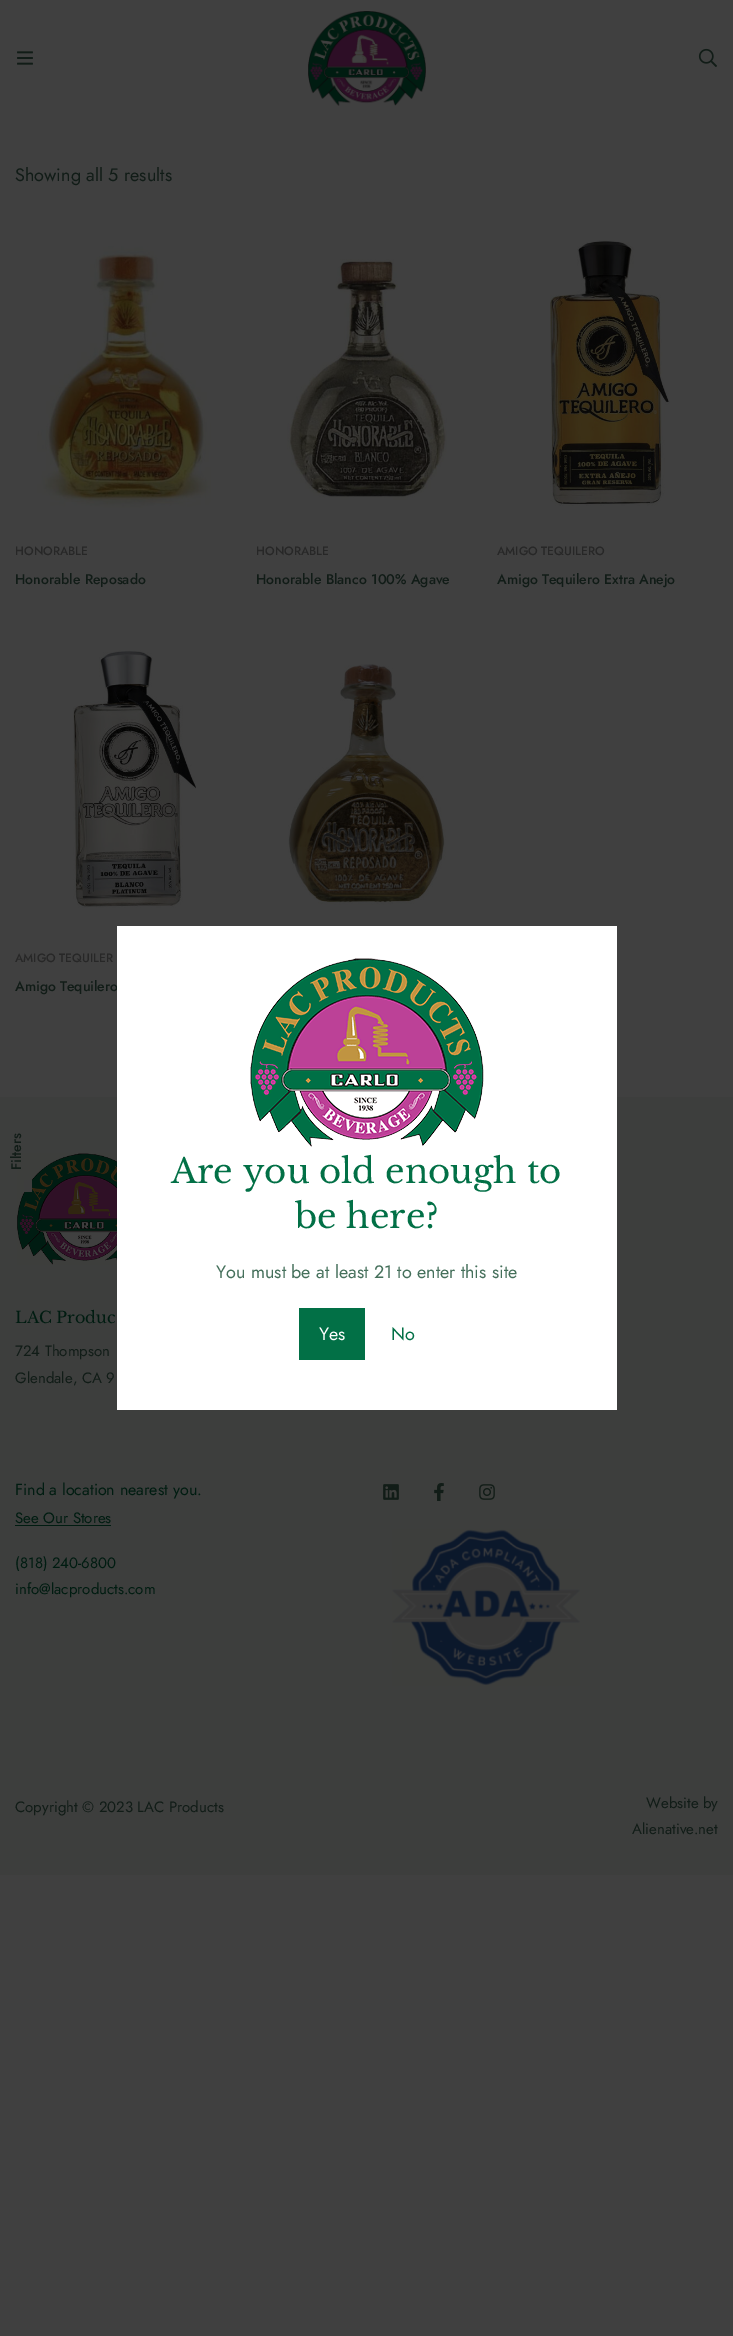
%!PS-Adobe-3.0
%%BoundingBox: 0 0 733 2336
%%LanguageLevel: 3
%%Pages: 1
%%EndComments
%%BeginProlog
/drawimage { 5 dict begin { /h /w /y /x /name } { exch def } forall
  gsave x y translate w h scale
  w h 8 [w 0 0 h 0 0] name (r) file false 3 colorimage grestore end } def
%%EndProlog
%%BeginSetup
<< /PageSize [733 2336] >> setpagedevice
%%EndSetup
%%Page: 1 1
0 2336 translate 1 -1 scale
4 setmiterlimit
0.251 setgray
0 0 733 2336 rectfill
(images/1.raw) 17 51 16 14 drawimage
(images/2.raw) 308 11 118 95 drawimage
(images/3.raw) 698 48 19 19 drawimage
(images/4.raw) 37 246 174 262 drawimage
(images/5.raw) 287 259 160 241 drawimage
(images/6.raw) 550 240 120 266 drawimage
(images/7.raw) 288 664 158 241 drawimage
(images/8.raw) 73 650 123 258 drawimage
0.239 0.243 0.239 setrgbcolor
0 1097 733 778 rectfill
(images/9.raw) 17 1153 100 112 drawimage
0.239 setgray
24 1180 8 12 rectfill
0 0.11 0.067 setrgbcolor
15 1525 96 1 rectfill
(images/10.raw) 383 1484 16 16 drawimage
(images/11.raw) 434 1483 10 18 drawimage
(images/12.raw) 479 1484 16 16 drawimage
(images/13.raw) 392 1529 188 157 drawimage
/Jost-Regular [18 0 0 -18 0 0] selectfont
0.067 0.11 0.09 setrgbcolor
15 181 moveto (Showing all 5 results) show
/Jost-Medium [12 0 0 -12 0 0] selectfont
0.153 setgray
15 555 moveto (HONORABLE) show
/Jost-Medium [14 0 0 -14 0 0] selectfont
0.067 0.11 0.09 setrgbcolor
15 584 moveto (Honorable Reposado) show
/Jost-Medium [12 0 0 -12 0 0] selectfont
0.153 setgray
256 555 moveto (HONORABLE) show
/Jost-Medium [14 0 0 -14 0 0] selectfont
0.067 0.11 0.09 setrgbcolor
256 584 moveto (Honorable Blanco 100% Agave) show
/Jost-Medium [12 0 0 -12 0 0] selectfont
0.153 setgray
497 555 moveto (AMIGO TEQUILERO) show
/Jost-Medium [14 0 0 -14 0 0] selectfont
0.067 0.11 0.09 setrgbcolor
497 584 moveto (Amigo Tequilero Extra Anejo) show
/Jost-Medium [12 0 0 -12 0 0] selectfont
0.153 setgray
15 962 moveto (AMIGO TEQUILER) show
/Jost-Medium [14 0 0 -14 0 0] selectfont
0.067 0.11 0.09 setrgbcolor
15 991 moveto (Amigo Tequilero) show
gsave 21 1170 translate -90 rotate 0 0 moveto (Filters) show grestore
/LibreBaskerville-Regular [16 0 0 -16 0 0] selectfont
0 0.11 0.067 setrgbcolor
15 1323 moveto (LAC Produc) show
/Jost-Regular [15 0 0 -15 0 0] selectfont
0.067 0.11 0.09 setrgbcolor
15 1356 moveto (724 Thompson) show
15 1383 moveto (Glendale, CA 9) show
/Jost-Regular [16 0 0 -16 0 0] selectfont
0 0.11 0.067 setrgbcolor
15 1495 moveto (Find a location nearest you.) show
/Jost-Regular [15 0 0 -15 0 0] selectfont
15 1523 moveto (See Our Stores) show
15 1568 moveto (\(818\) 240-6800) show
15 1594 moveto (info@lacproducts.com) show
0.067 0.11 0.09 setrgbcolor
15 1812 moveto (Copyright © 2023 LAC Products) show
646 1808 moveto (Website by) show
632 1834 moveto (Alienative.net) show
1 setgray
117 926 500 484 rectfill
(images/14.raw) 250 958 234 189 drawimage
/LibreBaskerville-Regular [34 0 0 -34 0 0] selectfont
0.008 0.439 0.275 setrgbcolor
171 1183 moveto (Are you old enough to) show
295 1228 moveto (be here?) show
/Jost-Regular [18 0 0 -18 0 0] selectfont
0.271 0.439 0.357 setrgbcolor
216 1278 moveto (You must be at least 21 to enter this site) show
0.008 0.439 0.275 setrgbcolor
299 1308 66 52 rectfill
1 setgray
319 1340 moveto (Yes) show
0.008 0.439 0.275 setrgbcolor
391 1340 moveto (No) show
showpage
%%EOF
